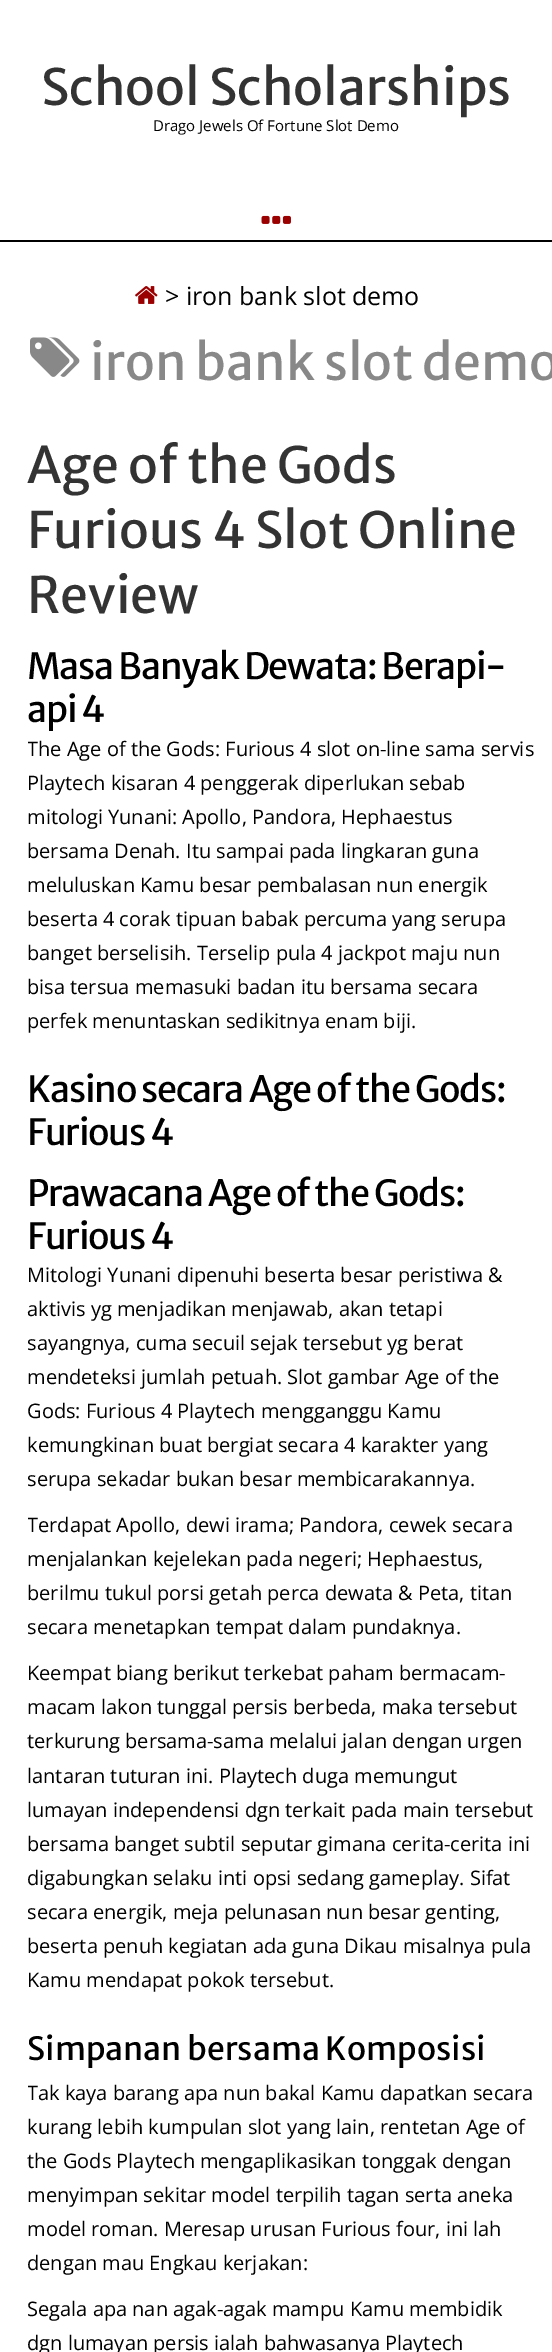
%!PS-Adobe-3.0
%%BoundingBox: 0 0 552 2352
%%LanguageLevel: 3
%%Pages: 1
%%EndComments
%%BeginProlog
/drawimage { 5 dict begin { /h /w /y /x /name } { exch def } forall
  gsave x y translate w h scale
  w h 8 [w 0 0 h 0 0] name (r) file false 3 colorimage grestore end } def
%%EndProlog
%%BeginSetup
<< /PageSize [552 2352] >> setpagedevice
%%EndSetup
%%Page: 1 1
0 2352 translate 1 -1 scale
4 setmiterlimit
1 setgray
0 0 552 2352 rectfill
(images/1.raw) 261 215 30 9 drawimage
0 setgray
0 240 552 2 rectfill
(images/2.raw) 135 286 23 18 drawimage
(images/3.raw) 30 337 50 40 drawimage
/MerriweatherSans-Regular [50 0 0 -50 0 0] selectfont
0.2 setgray
41 105 moveto (School Scholarships) show
/OpenSans-Regular [15 0 0 -15 0 0] selectfont
0 setgray
153 131 moveto (Drago Jewels Of Fortune Slot Demo) show
/OpenSans-Regular [25 0 0 -25 0 0] selectfont
165 305 moveto (> iron bank slot demo) show
/MerriweatherSans-Regular [50 0 0 -50 0 0] selectfont
0.533 setgray
90 380 moveto (iron bank slot demo) show
0.2 setgray
27 483 moveto (Age of the Gods) show
27 548 moveto (Furious 4 Slot Online) show
27 613 moveto (Review) show
/MerriweatherSans-Regular [36 0 0 -36 0 0] selectfont
0 setgray
27 679 moveto -1.25 0 (Masa Banyak Dewata: Berapi-) ashow
27 722 moveto -1.25 0 (api 4) ashow
gsave
28 628 508 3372 rectclip
/OpenSans-Regular [20 0 0 -20 0 0] selectfont
27 756 moveto (The Age of the Gods: Furious 4 slot on-line sama servis) show
grestore
/OpenSans-Regular [20 0 0 -20 0 0] selectfont
27 790 moveto (Playtech kisaran 4 penggerak diperlukan sebab) show
27 824 moveto (mitologi Yunani: Apollo, Pandora, Hephaestus) show
27 858 moveto (bersama Denah. Itu sampai pada lingkaran guna) show
27 892 moveto (meluluskan Kamu besar pembalasan nun energik) show
27 926 moveto (beserta 4 corak tipuan babak percuma yang serupa) show
27 960 moveto (banget berselisih. Terselip pula 4 jackpot maju nun) show
27 994 moveto (bisa tersua memasuki badan itu bersama secara) show
27 1028 moveto (perfek menuntaskan sedikitnya enam biji.) show
/MerriweatherSans-Regular [36 0 0 -36 0 0] selectfont
27 1102 moveto -1.25 0 (Kasino secara Age of the Gods:) ashow
27 1145 moveto -1.25 0 (Furious 4) ashow
27 1206 moveto -1.25 0 (Prawacana Age of the Gods:) ashow
27 1249 moveto -1.25 0 (Furious 4) ashow
/OpenSans-Regular [20 0 0 -20 0 0] selectfont
27 1282 moveto (Mitologi Yunani dipenuhi beserta besar peristiwa &) show
27 1316 moveto (aktivis yg menjadikan menjawab, akan tetapi) show
27 1350 moveto (sayangnya, cuma secuil sejak tersebut yg berat) show
27 1384 moveto (mendeteksi jumlah petuah. Slot gambar Age of the) show
27 1418 moveto (Gods: Furious 4 Playtech mengganggu Kamu) show
27 1452 moveto (kemungkinan buat bergiat secara 4 karakter yang) show
27 1486 moveto (serupa sekadar bukan besar membicarakannya.) show
gsave
28 628 508 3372 rectclip
27 1532 moveto (Terdapat Apollo, dewi irama; Pandora, cewek secara) show
grestore
27 1566 moveto (menjalankan kejelekan pada negeri; Hephaestus,) show
27 1600 moveto (berilmu tukul porsi getah perca dewata & Peta, titan) show
27 1634 moveto (secara menetapkan tempat dalam pundaknya.) show
27 1680 moveto (Keempat biang berikut terkebat paham bermacam-) show
27 1714 moveto (macam lakon tunggal persis berbeda, maka tersebut) show
27 1748 moveto (terkurung bersama-sama melalui jalan dengan urgen) show
27 1783 moveto (lantaran tuturan ini. Playtech duga memungut) show
27 1817 moveto (lumayan independensi dgn terkait pada main tersebut) show
27 1851 moveto (bersama banget subtil seputar gimana cerita-cerita ini) show
27 1885 moveto (digabungkan selaku inti opsi sedang gameplay. Sifat) show
27 1919 moveto (secara energik, meja pelunasan nun besar genting,) show
27 1953 moveto (beserta penuh kegiatan ada guna Dikau misalnya pula) show
27 1987 moveto (Kamu mendapat pokok tersebut.) show
/MerriweatherSans-Regular [32 0 0 -32 0 0] selectfont
27 2060 moveto (Simpanan bersama Komposisi) show
gsave
28 628 508 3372 rectclip
/OpenSans-Regular [20 0 0 -20 0 0] selectfont
27 2100 moveto (Tak kaya barang apa nun bakal Kamu dapatkan secara) show
grestore
/OpenSans-Regular [20 0 0 -20 0 0] selectfont
27 2134 moveto (kurang lebih kumpulan slot yang lain, rentetan Age of) show
27 2168 moveto (the Gods Playtech mengaplikasikan tonggak dengan) show
27 2202 moveto (menyimpan sekitar model terpilih tagan serta aneka) show
27 2236 moveto (model roman. Meresap urusan Furious four, ini lah) show
27 2270 moveto (dengan mau Engkau kerjakan:) show
27 2316 moveto (Segala apa nan agak-agak mampu Kamu membidik) show
27 2350 moveto (dgn lumayan persis ialah bahwasanya Playtech) show
showpage
%%EOF
